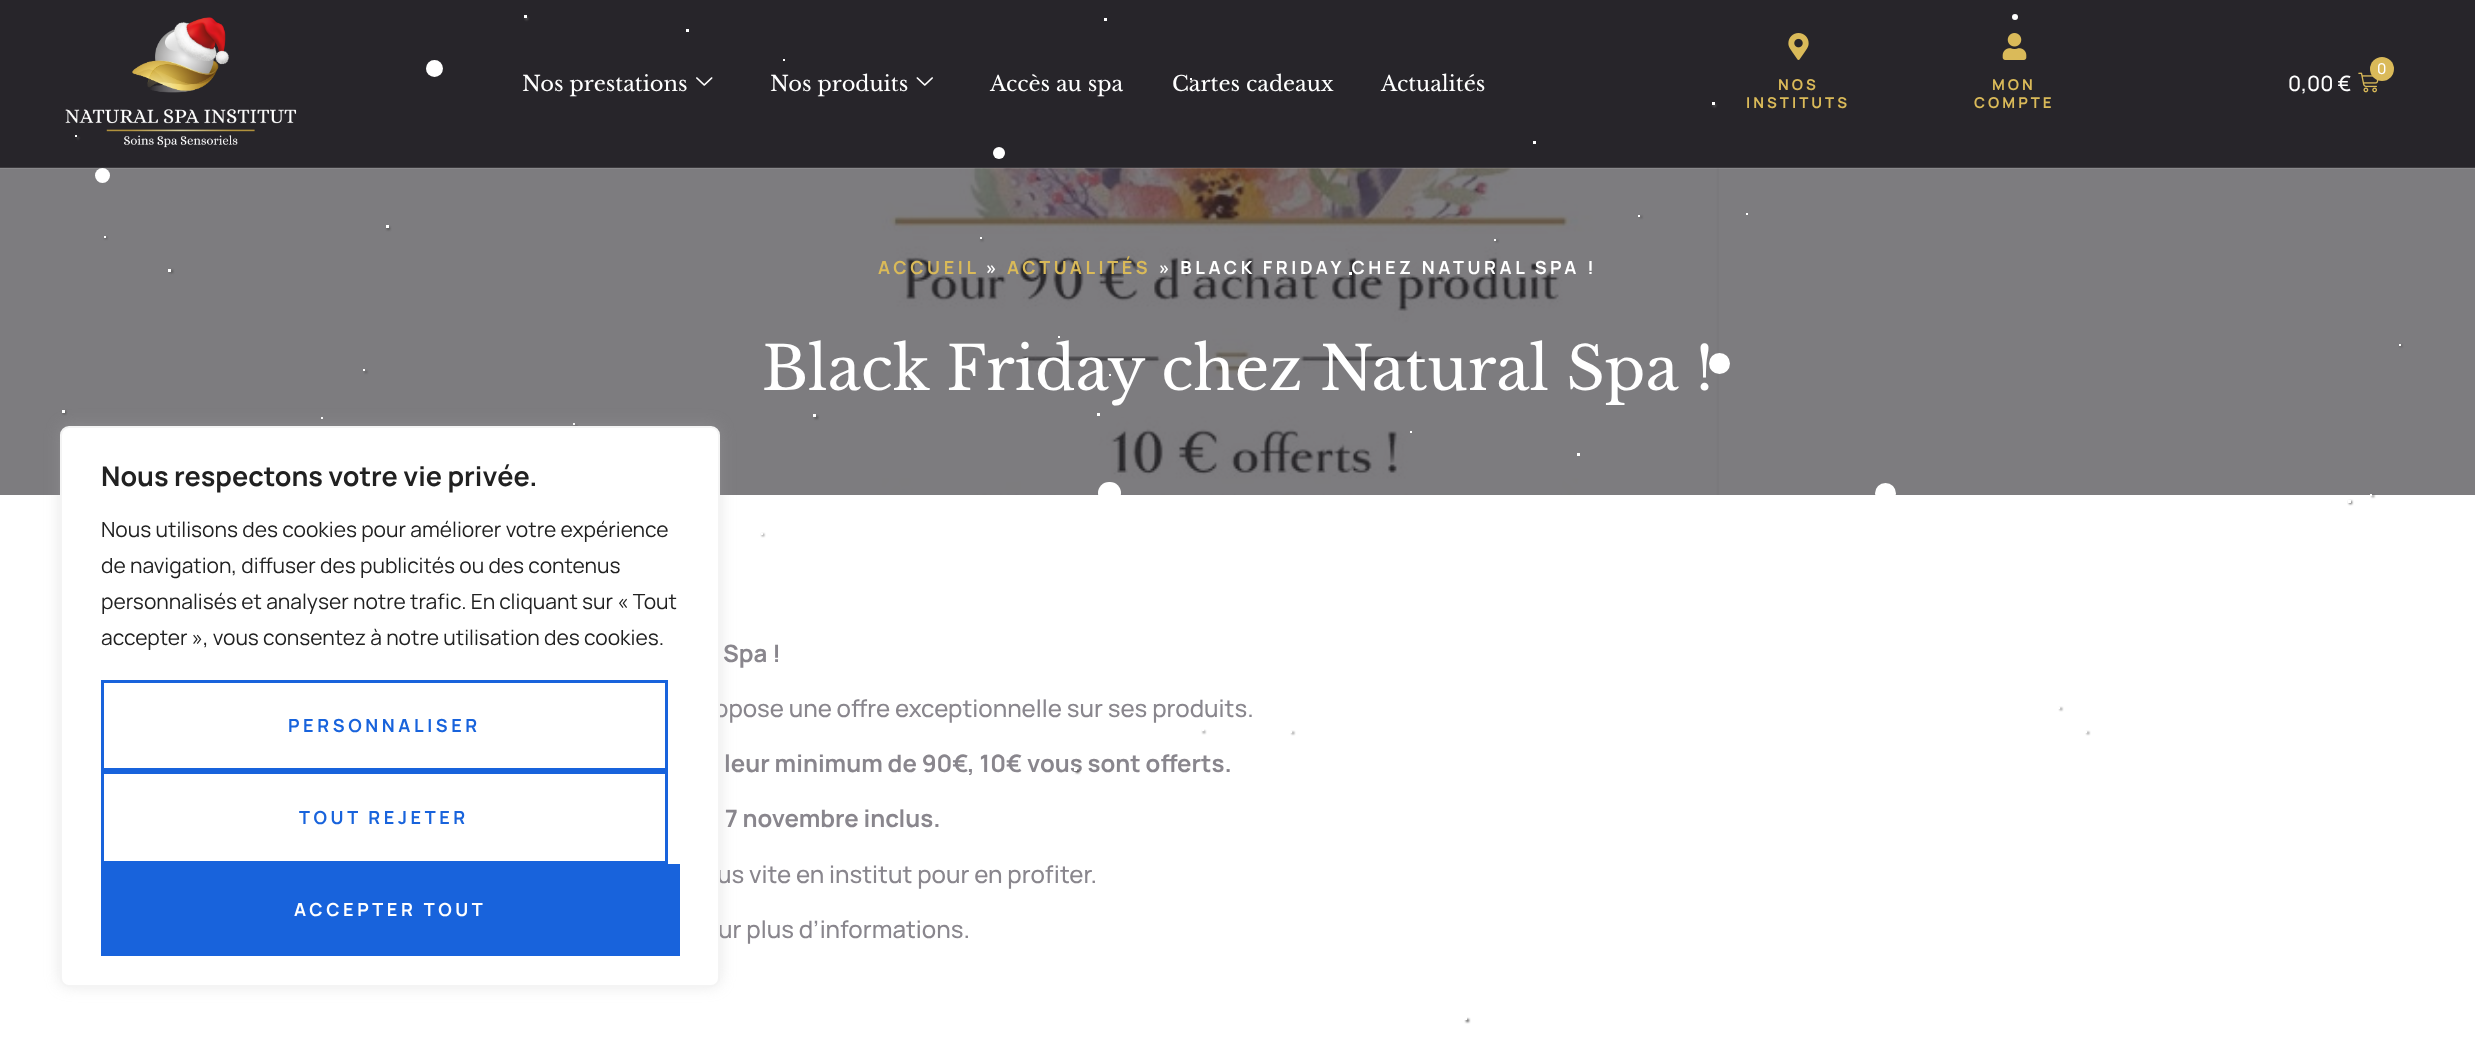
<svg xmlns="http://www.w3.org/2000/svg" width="2475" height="1046">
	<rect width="100%" height="100%" fill="#FFFFFF" />
	<rect x="0" y="168" width="2475" height="327" fill="#7D7C7F" />
	<rect x="0" y="0" width="2475" height="168" fill="#27252A" />
	<rect x="525" y="17" width="3" height="3" fill="#555555" filter="blur(1px)" />
	<rect x="524" y="15" width="3" height="3" fill="#FFFFFF" />
	<rect x="1104" y="18" width="3" height="3" fill="#FFFFFF" />
	<circle cx="2015" cy="17" r="3" fill="#FFFFFF" />
	<rect x="686" y="29" width="3" height="3" fill="#FFFFFF" />
	<circle cx="434.5" cy="68.5" r="8.5" fill="#FFFFFF" />
	<rect x="783" y="59" width="2" height="2" fill="#FFFFFF" />
	<image x="877" y="168" width="842" height="327" href="assets/img7.png" />
	<rect x="0" y="167" width="2475" height="2" fill="#FFFFFF" fill-opacity="0.1" />
	<image x="65" y="17" width="232" height="131" href="assets/img1.png" />
	<text x="522" y="91" font-family="Libre Baskerville" font-size="21" fill="#FFFFFF">Nos prestations</text>
	<image x="696" y="77" width="17" height="9" href="assets/img2.png" />
	<text x="770" y="91" font-family="Libre Baskerville" font-size="21" fill="#FFFFFF">Nos produits</text>
	<image x="916" y="77" width="17" height="9" href="assets/img3.png" />
	<g font-family="Libre Baskerville" font-size="21" fill="#FFFFFF">
		<text x="990" y="91">Accès au spa</text>
		<text x="1172" y="91">Cartes cadeaux</text>
		<text x="1381" y="91">Actualités</text>
	</g>
	<image x="1788" y="33" width="21" height="27" href="assets/img4.png" />
	<g font-family="Manrope" font-size="15" font-weight="700" letter-spacing="3" fill="#DABA59">
		<text x="1778" y="90">NOS</text>
		<text x="1746" y="108">INSTITUTS</text>
	</g>
	<image x="2002" y="33" width="25" height="27" href="assets/img5.png" />
	<g font-family="Manrope" font-size="15" font-weight="700" letter-spacing="3" fill="#DABA59">
		<text x="1992" y="90">MON</text>
		<text x="1974" y="108">COMPTE</text>
	</g>
	<image x="2358" y="72" width="21" height="21" href="assets/img6.png" />
	<circle cx="2382" cy="69" r="12" fill="#DABA59" />
	<text x="2377" y="74" font-family="Manrope" font-size="15" font-weight="500" fill="#FFFFFF">0</text>
	<text x="2288" y="91" font-family="Manrope" font-size="21" font-weight="500" fill="#FFFFFF">0,00 €</text>
	<rect x="1191" y="80" width="2" height="2" fill="#555555" filter="blur(1px)" />
	<rect x="1190" y="78" width="2" height="2" fill="#FFFFFF" />
	<rect x="1713" y="104" width="3" height="3" fill="#555555" filter="blur(1px)" />
	<rect x="1712" y="102" width="3" height="3" fill="#FFFFFF" />
	<rect x="77" y="137" width="2" height="2" fill="#555555" filter="blur(1px)" />
	<rect x="75" y="135" width="2" height="2" fill="#FFFFFF" />
	<rect x="1533" y="141" width="3" height="3" fill="#FFFFFF" />
	<circle cx="999" cy="153" r="6" fill="#FFFFFF" />
	<circle cx="102.5" cy="175.5" r="7.5" fill="#FFFFFF" />
	<rect x="1640" y="216" width="2" height="2" fill="#555555" filter="blur(1px)" />
	<rect x="1638" y="215" width="2" height="2" fill="#FFFFFF" />
	<rect x="1746" y="213" width="2" height="2" fill="#FFFFFF" />
	<rect x="387" y="227" width="3" height="3" fill="#555555" filter="blur(1px)" />
	<rect x="386" y="225" width="3" height="3" fill="#FFFFFF" />
	<rect x="105" y="237" width="2" height="2" fill="#555555" filter="blur(1px)" />
	<rect x="104" y="236" width="2" height="2" fill="#FFFFFF" />
	<rect x="981" y="239" width="2" height="2" fill="#555555" filter="blur(1px)" />
	<rect x="980" y="237" width="2" height="2" fill="#FFFFFF" />
	<rect x="1496" y="240" width="2" height="2" fill="#555555" filter="blur(1px)" />
	<rect x="1494" y="239" width="2" height="2" fill="#FFFFFF" />
	<rect x="170" y="270" width="3" height="3" fill="#555555" filter="blur(1px)" />
	<rect x="168" y="269" width="3" height="3" fill="#FFFFFF" />
	<text x="878" y="274" font-family="Manrope" font-size="18" font-weight="700" letter-spacing="3.6" fill="#DABA59">ACCUEIL</text>
	<text x="986" y="274" font-family="Manrope" font-size="18" font-weight="700" letter-spacing="3.6" fill="#FFFFFF">»</text>
	<text x="1007" y="274" font-family="Manrope" font-size="18" font-weight="700" letter-spacing="3.6" fill="#DABA59">ACTUALITÉS</text>
	<text x="1159" y="274" font-family="Manrope" font-size="18" font-weight="700" letter-spacing="3.6" fill="#FFFFFF">» BLACK FRIDAY CHEZ NATURAL SPA !</text>
	<text x="762" y="390" font-family="Libre Baskerville" font-size="60" fill="#FFFFFF">Black Friday chez Natural Spa !</text>
	<text x="723" y="662" font-family="Manrope" font-size="24" font-weight="700" fill="#89868D">Spa !</text>
	<text x="714" y="717" font-family="Manrope" font-size="24" font-weight="500" fill="#89868D">opose une offre exceptionnelle sur ses produits.</text>
	<g font-family="Manrope" font-size="24" font-weight="700" fill="#89868D">
		<text x="724" y="772">leur minimum de 90€, 10€ vous sont offerts.</text>
		<text x="725" y="827">7 novembre inclus.</text>
	</g>
	<g font-family="Manrope" font-size="24" font-weight="500" fill="#89868D">
		<text x="717" y="883">us vite en institut pour en profiter.</text>
		<text x="718" y="938">ur plus d’informations.</text>
	</g>
	<rect x="1349" y="272" width="3" height="3" fill="#FFFFFF" />
	<rect x="1058" y="336" width="2" height="2" fill="#FFFFFF" />
	<rect x="2400" y="345" width="2" height="2" fill="#555555" filter="blur(1px)" />
	<rect x="2399" y="344" width="2" height="2" fill="#FFFFFF" />
	<rect x="365" y="371" width="2" height="2" fill="#555555" filter="blur(1px)" />
	<rect x="363" y="369" width="2" height="2" fill="#FFFFFF" />
	<rect x="1109" y="374" width="2" height="2" fill="#FFFFFF" />
	<circle cx="1719.5" cy="363.5" r="10.5" fill="#FFFFFF" />
	<rect x="63" y="411" width="3" height="3" fill="#555555" filter="blur(1px)" />
	<rect x="62" y="410" width="3" height="3" fill="#FFFFFF" />
	<rect x="815" y="416" width="3" height="3" fill="#555555" filter="blur(1px)" />
	<rect x="813" y="414" width="3" height="3" fill="#FFFFFF" />
	<rect x="1097" y="413" width="3" height="3" fill="#FFFFFF" />
	<rect x="321" y="417" width="2" height="2" fill="#FFFFFF" />
	<rect x="575" y="425" width="2" height="2" fill="#555555" filter="blur(1px)" />
	<rect x="573" y="423" width="2" height="2" fill="#FFFFFF" />
	<rect x="1410" y="431" width="2" height="2" fill="#FFFFFF" />
	<rect x="1577" y="453" width="3" height="3" fill="#FFFFFF" />
	<rect x="60" y="425" width="660" height="561" rx="9" fill="#ACABAB" fill-opacity="0.3" filter="blur(7.5px)" />
	<rect x="61" y="427" width="658" height="559" rx="8" fill="#FFFFFF" stroke="#F4F4F4" stroke-width="2" />
	<text x="101" y="486" font-family="Manrope" font-size="27" font-weight="700" fill="#212121">Nous respectons votre vie privée.</text>
	<g font-family="Manrope" font-size="21" fill="#212121">
		<text x="101" y="537">Nous utilisons des cookies pour améliorer votre expérience</text>
		<text x="101" y="573">de navigation, diffuser des publicités ou des contenus</text>
		<text x="101" y="609">personnalisés et analyser notre trafic. En cliquant sur « Tout</text>
		<text x="101" y="645">accepter », vous consentez à notre utilisation des cookies.</text>
	</g>
	<rect x="102.5" y="681.5" width="564" height="88" fill="none" stroke="#1863DC" stroke-width="3" />
	<text x="288" y="732" font-family="Manrope" font-size="18" font-weight="700" letter-spacing="3.6" fill="#1863DC">PERSONNALISER</text>
	<rect x="102.5" y="772.5" width="564" height="90" fill="none" stroke="#1863DC" stroke-width="3" />
	<text x="299" y="824" font-family="Manrope" font-size="18" font-weight="700" letter-spacing="3.6" fill="#1863DC">TOUT REJETER</text>
	<rect x="101" y="864" width="579" height="92" fill="#1863DC" />
	<text x="294" y="916" font-family="Manrope" font-size="18" font-weight="700" letter-spacing="3.6" fill="#FFFFFF">ACCEPTER TOUT</text>
	<rect x="1098" y="482" width="23" height="22" rx="11" fill="#FFFFFF" />
	<circle cx="1885.5" cy="493.5" r="10.5" fill="#FFFFFF" />
	<rect x="2372" y="495" width="2" height="2" fill="#555555" filter="blur(1px)" />
	<rect x="2370" y="494" width="2" height="2" fill="#FFFFFF" />
	<rect x="2349" y="501" width="3" height="3" fill="#555555" filter="blur(1px)" />
	<rect x="2348" y="500" width="3" height="3" fill="#FFFFFF" />
	<rect x="762" y="534" width="2" height="2" fill="#555555" filter="blur(1px)" />
	<rect x="761" y="533" width="2" height="2" fill="#FFFFFF" />
	<rect x="2060" y="708" width="2" height="2" fill="#555555" filter="blur(1px)" />
	<rect x="2058" y="707" width="2" height="2" fill="#FFFFFF" />
	<rect x="1203" y="731" width="2" height="2" fill="#555555" filter="blur(1px)" />
	<rect x="1202" y="729" width="2" height="2" fill="#FFFFFF" />
	<rect x="1292" y="732" width="2" height="2" fill="#555555" filter="blur(1px)" />
	<rect x="1290" y="731" width="2" height="2" fill="#FFFFFF" />
	<rect x="2087" y="732" width="2" height="2" fill="#555555" filter="blur(1px)" />
	<rect x="2085" y="731" width="2" height="2" fill="#FFFFFF" />
	<rect x="1076" y="770" width="3" height="3" fill="#555555" filter="blur(1px)" />
	<rect x="1074" y="768" width="3" height="3" fill="#FFFFFF" />
	<rect x="1466" y="1019" width="3" height="3" fill="#555555" filter="blur(1px)" />
	<rect x="1464" y="1017" width="3" height="3" fill="#FFFFFF" />
</svg>
